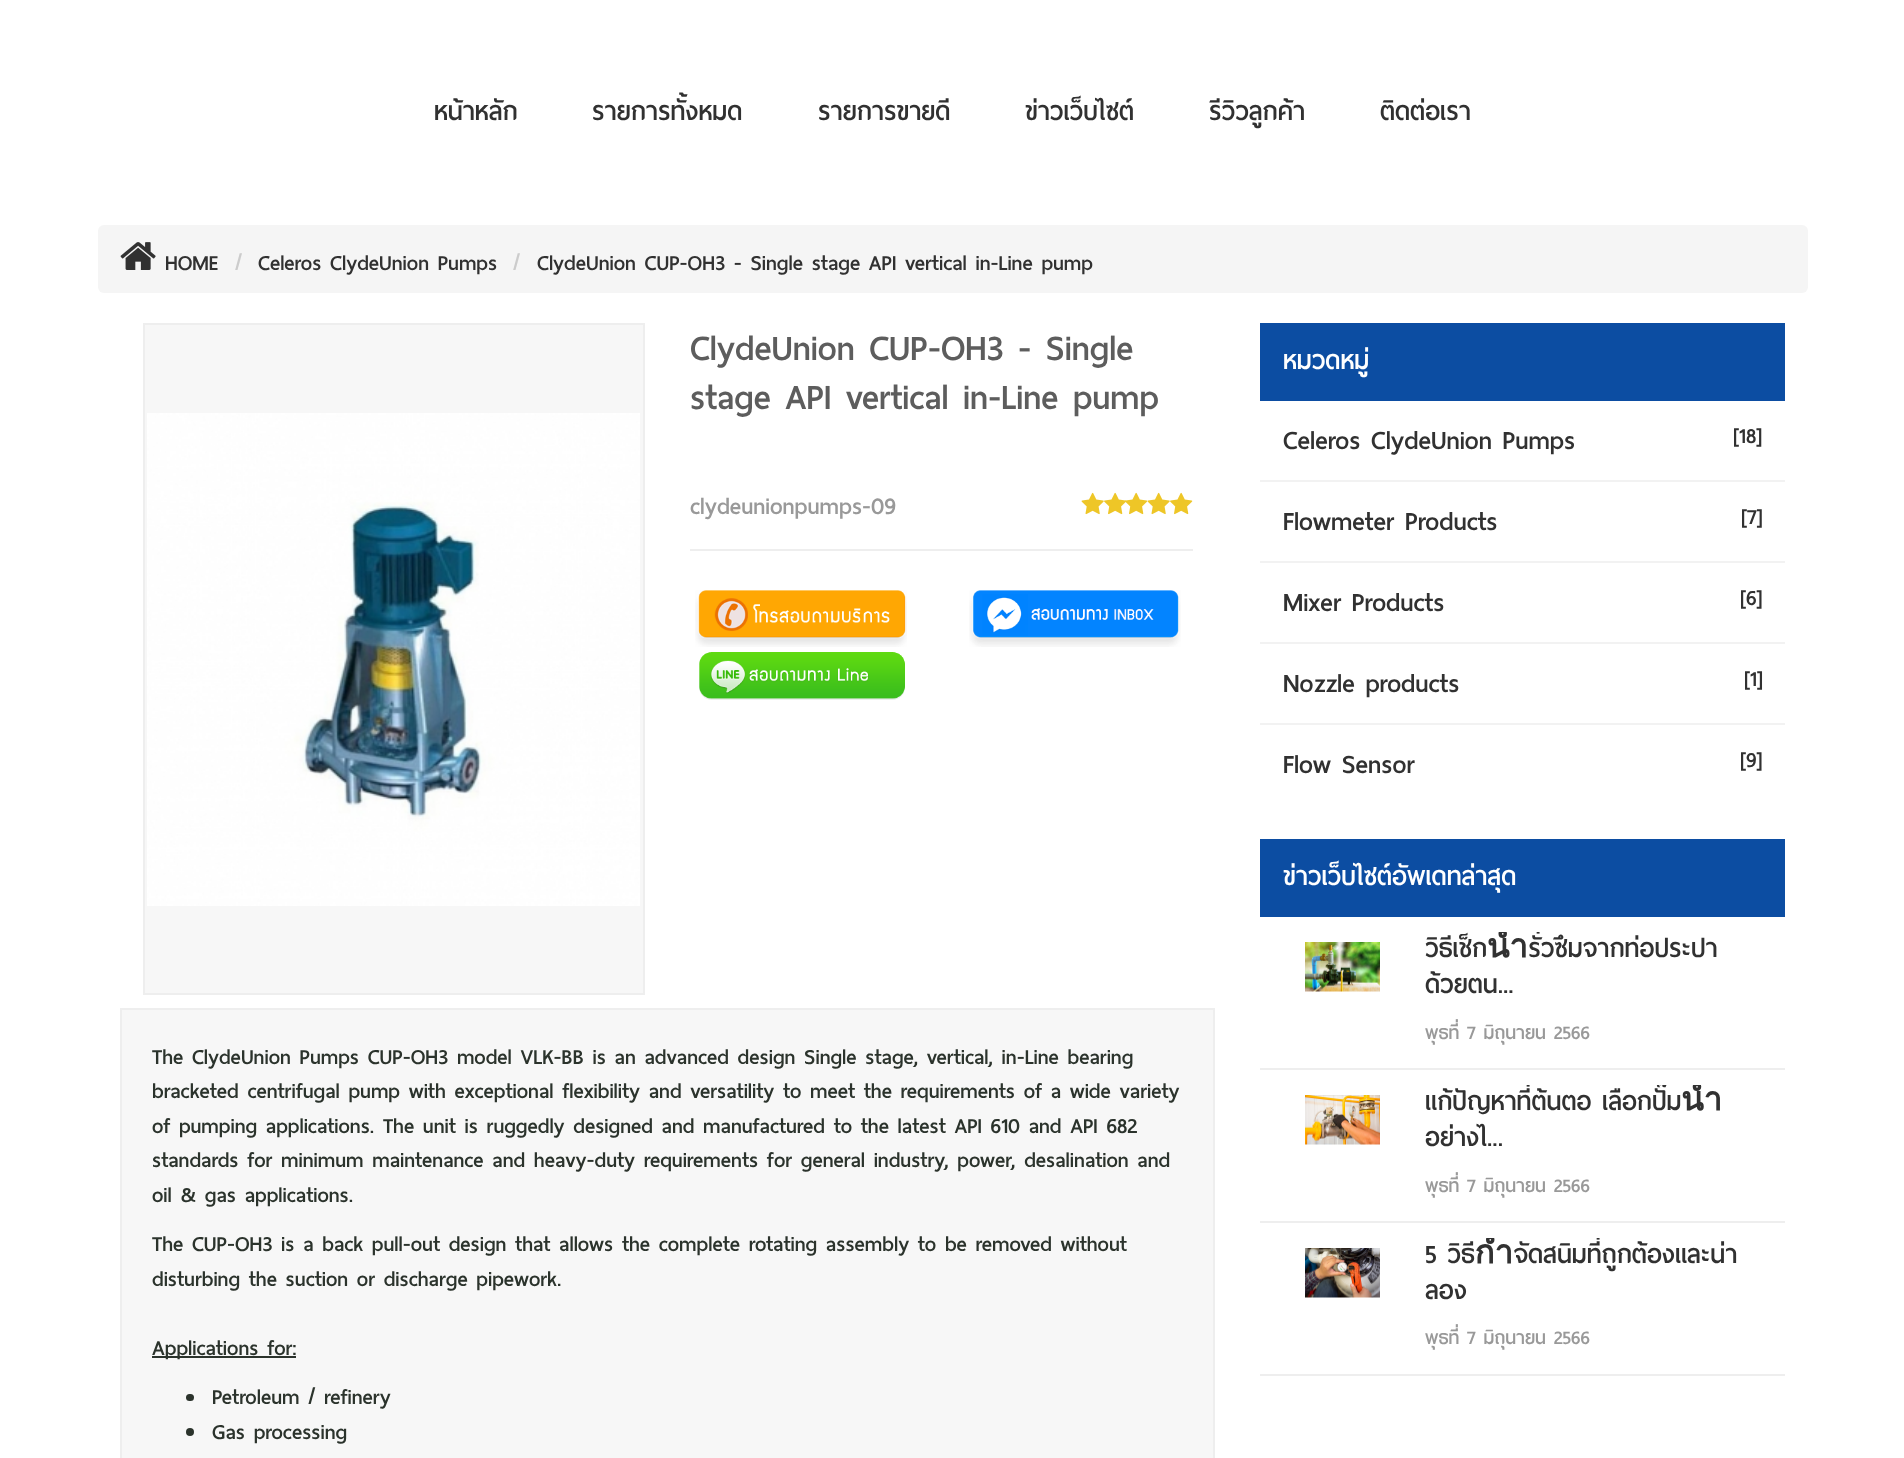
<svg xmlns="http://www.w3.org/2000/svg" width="1904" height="1458">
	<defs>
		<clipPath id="clip1"><rect x="1260" y="932" width="525" height="136" /></clipPath>
		<clipPath id="clip2"><rect x="1260" y="1085" width="525" height="136" /></clipPath>
		<clipPath id="clip3"><rect x="1260" y="1238" width="525" height="136" /></clipPath>
	</defs>
	<rect width="100%" height="100%" fill="#FFFFFF" />
	<g font-family="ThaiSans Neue" font-size="33" font-weight="700" fill="#313131">
		<text x="434" y="120">หน้าหลัก</text>
		<text x="592" y="120">รายการทั้งหมด</text>
		<text x="818" y="120">รายการขายดี</text>
		<text x="1025" y="120">ข่าวเว็บไซต์</text>
		<text x="1209" y="120">รีวิวลูกค้า</text>
		<text x="1380" y="120">ติดต่อเรา</text>
	</g>
	<rect x="98" y="225" width="1710" height="68" rx="6" fill="#F5F5F5" />
	<image x="120" y="242" width="36" height="28" href="assets/img1.png" />
	<text x="165" y="270" font-family="ThaiSans Neue" font-size="27" font-weight="700" fill="#313131">HOME</text>
	<text x="235" y="270" font-family="ThaiSans Neue" font-size="27" font-weight="700" fill="#CCCCCC">/</text>
	<text x="258" y="270" font-family="ThaiSans Neue" font-size="27" font-weight="700" fill="#313131">Celeros ClydeUnion Pumps</text>
	<text x="513" y="270" font-family="ThaiSans Neue" font-size="27" font-weight="700" fill="#CCCCCC">/</text>
	<text x="537" y="270" font-family="ThaiSans Neue" font-size="27" font-weight="700" fill="#313131">ClydeUnion CUP-OH3 - Single stage API vertical in-Line pump</text>
	<rect x="144" y="324" width="500" height="670" fill="#F7F7F7" stroke="#EEEEEE" stroke-width="2" />
	<image x="147" y="413" width="493" height="493" href="assets/img2.png" />
	<g font-family="ThaiSans Neue" font-size="45" font-weight="700" fill="#5D5D5D">
		<text x="690" y="360">ClydeUnion CUP-OH3 - Single</text>
		<text x="690" y="409">stage API vertical in-Line pump</text>
	</g>
	<rect x="690" y="549" width="503" height="2" fill="#EEEEEE" />
	<text x="690" y="514" font-family="ThaiSans Neue" font-size="30" font-weight="700" fill="#999999">clydeunionpumps-09</text>
	<image x="1081" y="492" width="23" height="23" href="assets/img3.png" />
	<image x="1104" y="492" width="23" height="23" href="assets/img4.png" />
	<image x="1125" y="492" width="23" height="23" href="assets/img5.png" />
	<image x="1147" y="492" width="23" height="23" href="assets/img6.png" />
	<image x="1170" y="492" width="23" height="23" href="assets/img4.png" />
	<image x="695" y="590" width="212" height="57" href="assets/img7.png" />
	<image x="969" y="590" width="212" height="57" href="assets/img8.png" />
	<image x="699" y="652" width="206" height="48" href="assets/img9.png" />
	<rect x="121" y="1009" width="1093" height="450" fill="#F7F7F7" stroke="#EEEEEE" stroke-width="2" />
	<g font-family="ThaiSans Neue" font-size="27" font-weight="700" fill="#2B332C">
		<text x="152" y="1064">The ClydeUnion Pumps CUP-OH3 model VLK-BB is an advanced design Single stage, vertical, in-Line bearing</text>
		<text x="152" y="1098">bracketed centrifugal pump with exceptional flexibility and versatility to meet the requirements of a wide variety</text>
		<text x="152" y="1133">of pumping applications. The unit is ruggedly designed and manufactured to the latest API 610 and API 682</text>
		<text x="152" y="1167">standards for minimum maintenance and heavy-duty requirements for general industry, power, desalination and</text>
		<text x="152" y="1202">oil &amp; gas applications.</text>
		<text x="152" y="1251">The CUP-OH3 is a back pull-out design that allows the complete rotating assembly to be removed without</text>
		<text x="152" y="1286">disturbing the suction or discharge pipework.</text>
	</g>
	<rect x="152" y="1356" width="144" height="2" fill="#2B332C" />
	<text x="152" y="1355" font-family="ThaiSans Neue" font-size="27" font-weight="700" fill="#2B332C">Applications for:</text>
	<rect x="186" y="1394" width="8" height="7" rx="3.5" fill="#2B332C" />
	<text x="212" y="1404" font-family="ThaiSans Neue" font-size="27" font-weight="700" fill="#2B332C">Petroleum / refinery</text>
	<circle cx="190" cy="1432" r="4" fill="#2B332C" />
	<text x="212" y="1439" font-family="ThaiSans Neue" font-size="27" font-weight="700" fill="#2B332C">Gas processing</text>
	<rect x="1260" y="323" width="525" height="78" fill="#0C4DA2" />
	<text x="1283" y="369" font-family="ThaiSans Neue" font-size="33" font-weight="700" fill="#FFFFFF">หมวดหมู่</text>
	<rect x="1260" y="480" width="525" height="2" fill="#F2F2F2" />
	<text x="1283" y="449" font-family="ThaiSans Neue" font-size="33" font-weight="700" fill="#313131">Celeros ClydeUnion Pumps</text>
	<text x="1733" y="443" font-family="ThaiSans Neue" font-size="27" font-weight="700" fill="#313131">[18]</text>
	<rect x="1260" y="561" width="525" height="2" fill="#F2F2F2" />
	<text x="1283" y="530" font-family="ThaiSans Neue" font-size="33" font-weight="700" fill="#313131">Flowmeter Products</text>
	<text x="1741" y="524" font-family="ThaiSans Neue" font-size="27" font-weight="700" fill="#313131">[7]</text>
	<rect x="1260" y="642" width="525" height="2" fill="#F2F2F2" />
	<text x="1283" y="611" font-family="ThaiSans Neue" font-size="33" font-weight="700" fill="#313131">Mixer Products</text>
	<text x="1740" y="605" font-family="ThaiSans Neue" font-size="27" font-weight="700" fill="#313131">[6]</text>
	<rect x="1260" y="723" width="525" height="2" fill="#F2F2F2" />
	<text x="1283" y="692" font-family="ThaiSans Neue" font-size="33" font-weight="700" fill="#313131">Nozzle products</text>
	<text x="1744" y="686" font-family="ThaiSans Neue" font-size="27" font-weight="700" fill="#313131">[1]</text>
	<text x="1283" y="773" font-family="ThaiSans Neue" font-size="33" font-weight="700" fill="#313131">Flow Sensor</text>
	<text x="1740" y="767" font-family="ThaiSans Neue" font-size="27" font-weight="700" fill="#313131">[9]</text>
	<rect x="1260" y="839" width="525" height="78" fill="#0C4DA2" />
	<text x="1283" y="885" font-family="ThaiSans Neue" font-size="33" font-weight="700" fill="#FFFFFF">ข่าวเว็บไซต์อัพเดทล่าสุด</text>
	<rect x="1260" y="1068" width="525" height="2" fill="#EEEEEE" />
	<image x="1305" y="942" width="75" height="50" href="assets/img10.png" />
	<g clip-path="url(#clip1)">
		<text x="1425" y="957" font-family="ThaiSans Neue" font-size="33" font-weight="700" fill="#313131">วิธีเช็กน้ำรั่วซึมจากท่อประปา</text>
	</g>
	<text x="1425" y="993" font-family="ThaiSans Neue" font-size="33" font-weight="700" fill="#313131">ด้วยตน...</text>
	<text x="1425" y="1039" font-family="ThaiSans Neue" font-size="24" font-weight="700" fill="#999999">พุธที่ 7 มิถุนายน 2566</text>
	<rect x="1260" y="1221" width="525" height="2" fill="#EEEEEE" />
	<image x="1305" y="1095" width="75" height="50" href="assets/img11.png" />
	<g clip-path="url(#clip2)">
		<text x="1425" y="1110" font-family="ThaiSans Neue" font-size="33" font-weight="700" fill="#313131">แก้ปัญหาที่ต้นตอ เลือกปั๊มน้ำ</text>
	</g>
	<text x="1425" y="1146" font-family="ThaiSans Neue" font-size="33" font-weight="700" fill="#313131">อย่างไ...</text>
	<text x="1425" y="1192" font-family="ThaiSans Neue" font-size="24" font-weight="700" fill="#999999">พุธที่ 7 มิถุนายน 2566</text>
	<rect x="1260" y="1374" width="525" height="2" fill="#EEEEEE" />
	<image x="1305" y="1248" width="75" height="50" href="assets/img12.png" />
	<g clip-path="url(#clip3)">
		<text x="1425" y="1263" font-family="ThaiSans Neue" font-size="33" font-weight="700" fill="#313131">5 วิธีกำจัดสนิมที่ถูกต้องและน่า</text>
	</g>
	<text x="1425" y="1299" font-family="ThaiSans Neue" font-size="33" font-weight="700" fill="#313131">ลอง</text>
	<text x="1425" y="1344" font-family="ThaiSans Neue" font-size="24" font-weight="700" fill="#999999">พุธที่ 7 มิถุนายน 2566</text>
</svg>
